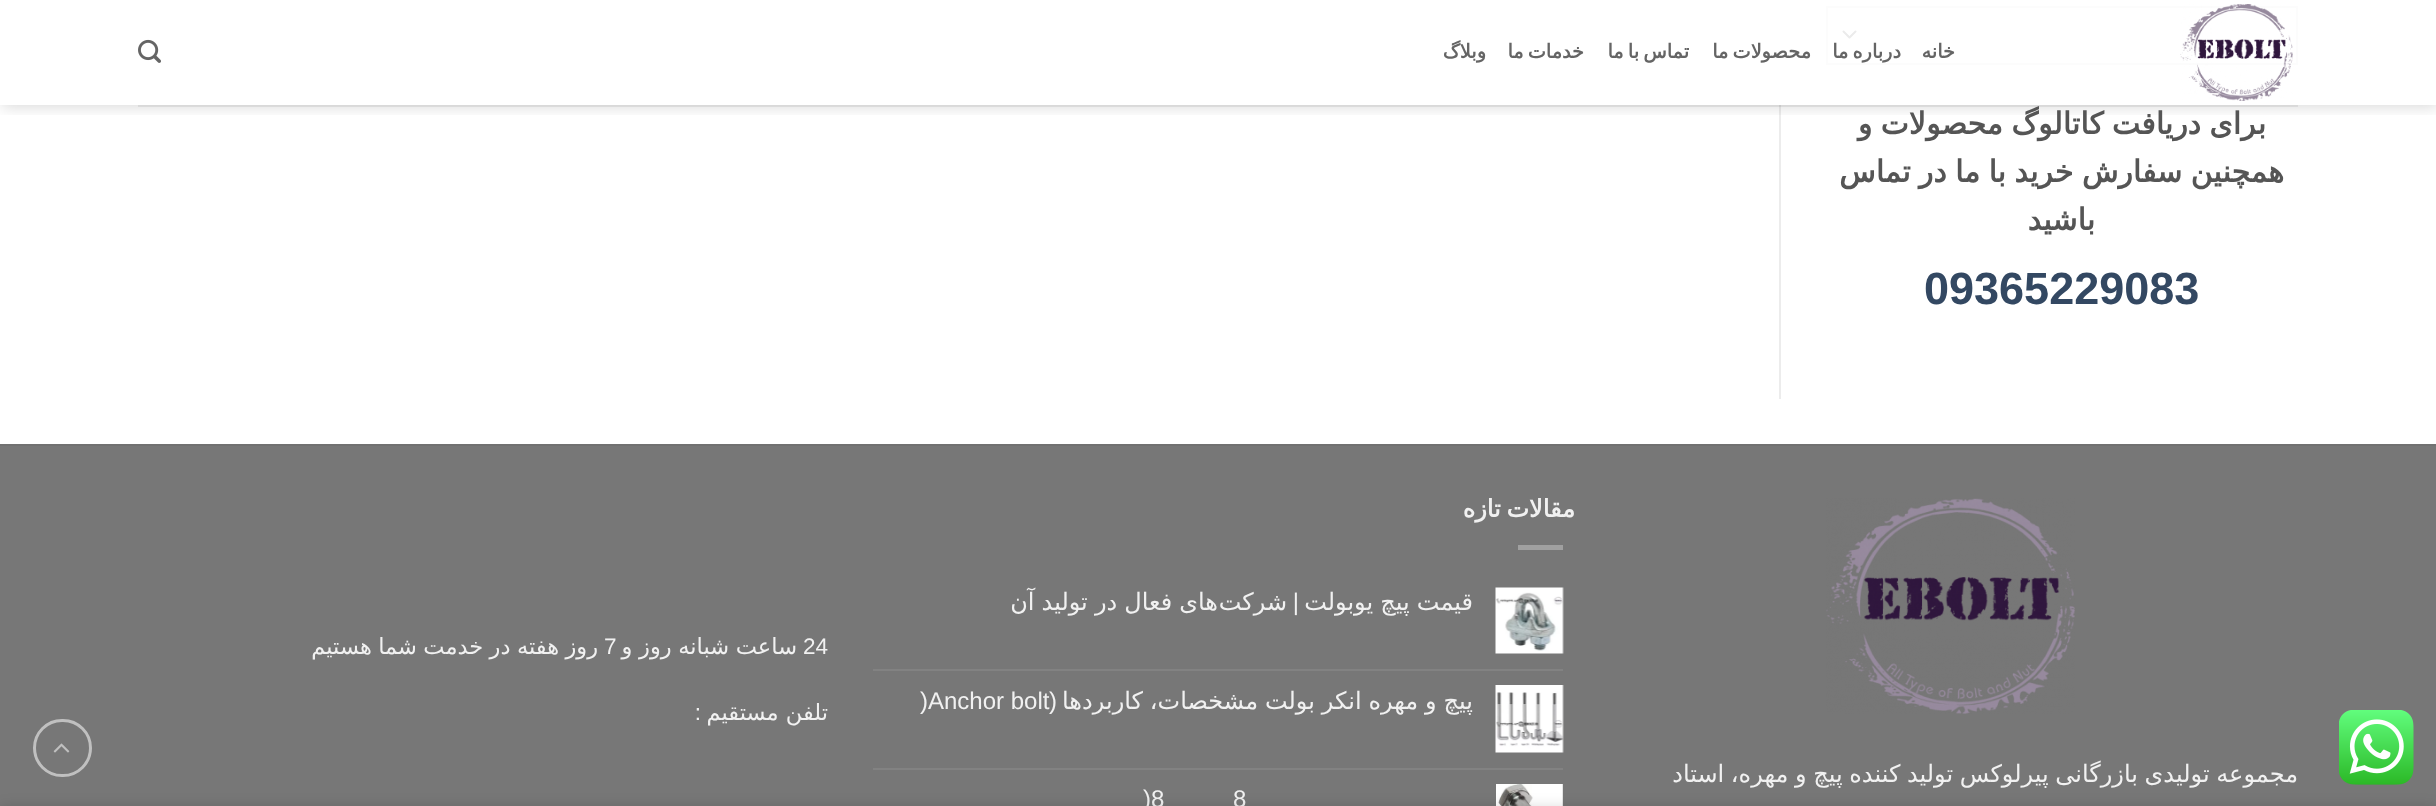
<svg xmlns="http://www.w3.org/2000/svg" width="2436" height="806">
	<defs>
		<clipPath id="clip1"><rect x="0" y="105" width="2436" height="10" /></clipPath>
	</defs>
	<rect width="100%" height="100%" fill="#FFFFFF" />
	<rect x="0" y="446" width="2436" height="360" fill="#777777" />
	<image x="2339" y="710" width="75" height="75" href="assets/img1.png" />
	<path d="M1843.5 31.5L1849.5 37.5L1855.5 31.5" fill="none" stroke="#EBEBEB" stroke-width="2" stroke-linecap="round" stroke-linejoin="round" />
	<rect x="1827" y="7" width="470" height="57" fill="none" stroke="#FCFCFC" stroke-width="2" />
	<rect x="1779" y="105" width="2" height="294" fill="#ECECEC" />
	<g clip-path="url(#clip1)">
		<rect x="2" y="2" width="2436" height="105" fill="#000000" fill-opacity="0.15" filter="blur(7.5px)" />
	</g>
	<image x="2180" y="4" width="113" height="97" href="assets/img2.png" />
	<g font-family="DejaVu Sans" font-size="19.25" font-weight="700" letter-spacing="0.4" direction="rtl" fill="#656565">
		<text x="1955" y="58">خانه</text>
		<text x="1901" y="58" word-spacing="-2">درباره ما</text>
		<text x="1811" y="58" word-spacing="-2">محصولات ما</text>
		<text x="1689" y="58" word-spacing="-2">تماس با ما</text>
		<text x="1584" y="58" word-spacing="-2">خدمات ما</text>
		<text x="1486" y="58">وبلاگ</text>
	</g>
	<image x="138" y="39" width="23" height="24" href="assets/img3.png" />
	<rect x="138" y="105" width="2160" height="2" fill="#4A4A4A" fill-opacity="0.1" />
	<g font-family="DejaVu Sans" font-size="30" font-weight="700" direction="rtl" fill="#555555">
		<text x="2266" y="134" word-spacing="-1.25">برای دریافت کاتالوگ محصولات و</text>
		<text x="2284" y="182" word-spacing="-1.25">همچنین سفارش خرید با ما در تماس</text>
		<text x="2095" y="230">باشید</text>
	</g>
	<text x="1924" y="304" font-family="Liberation Sans" font-size="45" font-weight="700" fill="#334862">09365229083</text>
	<rect x="0" y="444" width="2436" height="2" fill="#717171" />
	<text x="1575" y="517" word-spacing="-2" font-family="DejaVu Sans" font-size="24" font-weight="700" letter-spacing="1.25" direction="rtl" fill="#F1F1F1">مقالات تازه</text>
	<rect x="1518" y="545" width="45" height="5" fill="#A0A0A0" />
	<image x="1495" y="587" width="69" height="67" href="assets/img4.png" />
	<text x="1473" y="610" word-spacing="-0.5" font-family="DejaVu Sans" font-size="24" direction="rtl" fill="#F1F1F1">قیمت پیچ یوبولت</text>
	<text x="1299" y="610" font-family="Liberation Sans" font-size="24" direction="rtl" fill="#F1F1F1">|</text>
	<g font-family="DejaVu Sans" font-size="24" direction="rtl" fill="#F1F1F1">
		<text x="1218" y="610" word-spacing="-0.5">های فعال در تولید آن</text>
		<text x="1287" y="610">شرکت</text>
	</g>
	<rect x="873" y="669" width="690" height="2" fill="#828282" />
	<image x="1495" y="685" width="69" height="68" href="assets/img5.png" />
	<text x="1473" y="709" word-spacing="-0.75" font-family="DejaVu Sans" font-size="24" direction="rtl" fill="#F1F1F1">پیچ و مهره انکر بولت مشخصات، کاربردها</text>
	<text x="1057" y="709" font-family="Liberation Sans" font-size="24" direction="rtl" fill="#F1F1F1">(</text>
	<text x="920" y="709" font-family="Liberation Sans" font-size="24" fill="#F1F1F1">)Anchor bolt</text>
	<rect x="873" y="768" width="690" height="2" fill="#828282" />
	<image x="1496" y="784" width="67" height="22" href="assets/img6.png" />
	<g font-family="Liberation Sans" font-size="24" fill="#F1F1F1">
		<text x="1233" y="807">8</text>
		<text x="1143" y="807">)8</text>
	</g>
	<text x="803" y="654" font-family="Liberation Sans" font-size="22.5" fill="#F1F1F1">24</text>
	<text x="797" y="654" word-spacing="-0.5" font-family="DejaVu Sans" font-size="22.5" direction="rtl" fill="#F1F1F1">ساعت شبانه روز و</text>
	<text x="604" y="654" font-family="Liberation Sans" font-size="22.5" fill="#F1F1F1">7</text>
	<g font-family="DejaVu Sans" font-size="22.5" direction="rtl" fill="#F1F1F1">
		<text x="598" y="654" word-spacing="-0.75">روز هفته در خدمت شما هستیم</text>
		<text x="828" y="720">تلفن مستقیم</text>
	</g>
	<text x="701" y="720" font-family="Liberation Sans" font-size="22.5" direction="rtl" fill="#F1F1F1">:</text>
	<image x="1826" y="498" width="249" height="216" href="assets/img7.png" />
	<text x="2298" y="782" word-spacing="-1" font-family="DejaVu Sans" font-size="24" direction="rtl" fill="#F1F1F1">مجموعه تولیدی بازرگانی پیرلوکس تولید کننده پیچ و مهره، استاد</text>
	<rect x="34.5" y="720.5" width="56" height="55" rx="27.5" fill="none" stroke="#C0C0C0" stroke-width="3" />
	<image x="53" y="743" width="17" height="10" href="assets/img8.png" />
	<rect x="0" y="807" width="2436" height="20" fill="#000000" fill-opacity="0.14" filter="blur(7px)" />
</svg>
